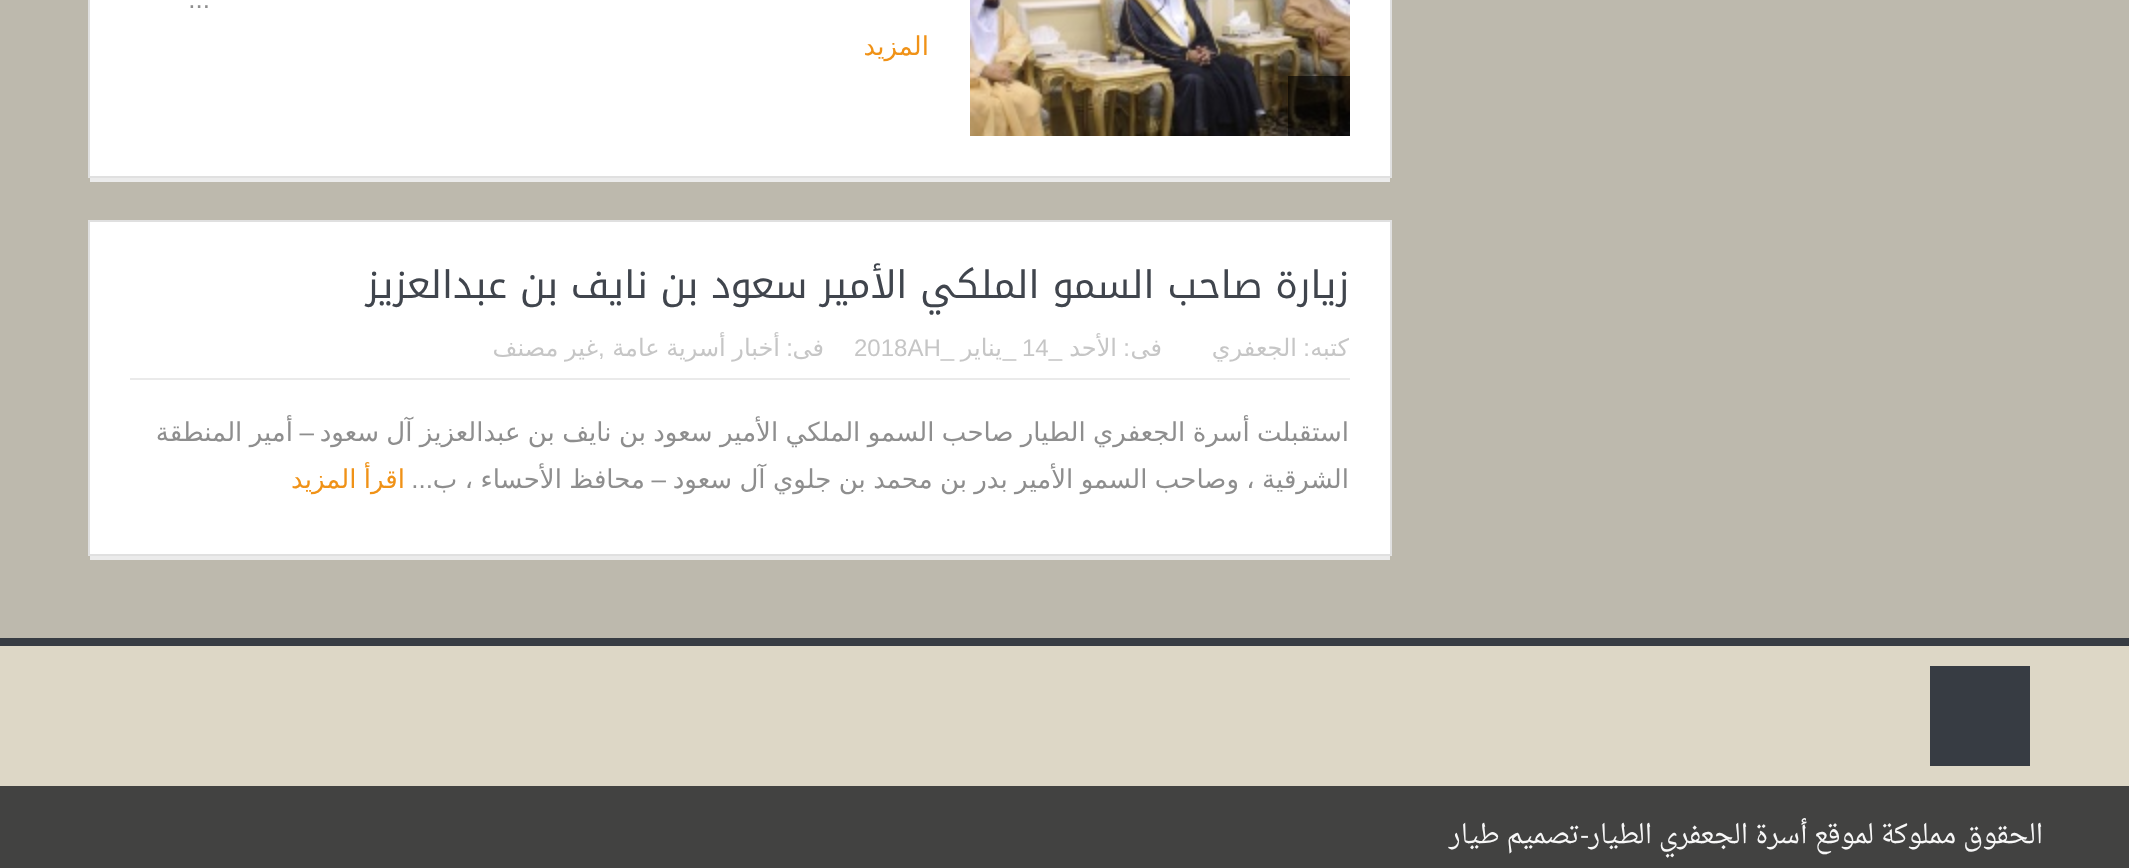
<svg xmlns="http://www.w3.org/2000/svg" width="2129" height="868">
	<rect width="100%" height="100%" fill="#BDB9AD" />
	<rect x="89" y="-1" width="1302" height="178" fill="#FFFFFF" stroke="#E0E0E0" stroke-width="2" />
	<image x="970" y="0" width="380" height="136" href="assets/img1.png" />
	<rect x="1288" y="76" width="62" height="60" fill="#000000" fill-opacity="0.6" />
	<text x="210" y="8" font-family="Liberation Sans" font-size="26" direction="rtl" fill="#8E8E8E">...</text>
	<text x="929" y="55" font-family="DejaVu Sans" font-size="26" direction="rtl" fill="#F09217">المزيد</text>
	<rect x="90" y="178" width="1300" height="4" fill="#EBEBEB" />
	<rect x="89" y="221" width="1302" height="334" fill="#FFFFFF" stroke="#E0E0E0" stroke-width="2" />
	<rect x="130" y="378" width="1220" height="2" fill="#EAEAEA" />
	<text x="1349" y="298" font-family="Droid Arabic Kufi" font-size="38" direction="rtl" fill="#40454D">زيارة صاحب السمو الملكي الأمير سعود بن نايف بن عبدالعزيز</text>
	<text x="1349" y="356" font-family="DejaVu Sans" font-size="24" direction="rtl" fill="#C6C6C6">كتبه</text>
	<text x="1310" y="356" font-family="Liberation Sans" font-size="24" direction="rtl" fill="#C6C6C6">:</text>
	<g font-family="DejaVu Sans" font-size="24" direction="rtl" fill="#C6C6C6">
		<text x="1297" y="356">الجعفري</text>
		<text x="1162" y="356">فى</text>
	</g>
	<text x="1130" y="356" font-family="Liberation Sans" font-size="24" direction="rtl" fill="#C6C6C6">:</text>
	<text x="1117" y="356" font-family="DejaVu Sans" font-size="24" direction="rtl" fill="#C6C6C6">الأحد</text>
	<text x="1022" y="356" font-family="Liberation Sans" font-size="24" fill="#C6C6C6">14</text>
	<text x="1002" y="356" font-family="DejaVu Sans" font-size="24" direction="rtl" fill="#C6C6C6">يناير</text>
	<text x="854" y="356" font-family="Liberation Sans" font-size="24" fill="#C6C6C6">2018AH</text>
	<g font-family="Liberation Sans" font-size="24" direction="rtl" fill="#C6C6C6">
		<text x="1062" y="356">_</text>
		<text x="1016" y="356">_</text>
		<text x="954" y="356">_</text>
	</g>
	<text x="824" y="356" font-family="DejaVu Sans" font-size="24" direction="rtl" fill="#C6C6C6">فى</text>
	<text x="793" y="356" font-family="Liberation Sans" font-size="24" direction="rtl" fill="#C6C6C6">:</text>
	<text x="780" y="356" word-spacing="-1" font-family="DejaVu Sans" font-size="24" direction="rtl" fill="#C6C6C6">أخبار أسرية عامة</text>
	<text x="598" y="356" font-family="Liberation Sans" font-size="24" fill="#C6C6C6">,</text>
	<text x="598" y="356" word-spacing="-1" font-family="DejaVu Sans" font-size="24" direction="rtl" fill="#C6C6C6">غير مصنف</text>
	<text x="1349" y="441" word-spacing="-0.9" font-family="DejaVu Sans" font-size="26" direction="rtl" fill="#8E8E8E">استقبلت أسرة الجعفري الطيار صاحب السمو الملكي الأمير سعود بن نايف بن عبدالعزيز آل سعود</text>
	<text x="314" y="441" font-family="Liberation Sans" font-size="26" direction="rtl" fill="#8E8E8E">–</text>
	<g font-family="DejaVu Sans" font-size="26" direction="rtl" fill="#8E8E8E">
		<text x="293" y="441" word-spacing="-0.9">أمير المنطقة</text>
		<text x="1349" y="488" word-spacing="-0.9">الشرقية ، وصاحب السمو الأمير بدر بن محمد بن جلوي آل سعود</text>
	</g>
	<text x="666" y="488" font-family="Liberation Sans" font-size="26" direction="rtl" fill="#8E8E8E">–</text>
	<text x="645" y="488" word-spacing="-0.9" font-family="DejaVu Sans" font-size="26" direction="rtl" fill="#8E8E8E">محافظ الأحساء ، ب</text>
	<text x="405" y="488" word-spacing="-1" font-family="DejaVu Sans" font-size="26" direction="rtl" fill="#F09217">اقرأ المزيد</text>
	<text x="433" y="488" font-family="Liberation Sans" font-size="26" direction="rtl" fill="#8E8E8E">...</text>
	<rect x="90" y="556" width="1300" height="4" fill="#EBEBEB" />
	<rect x="0" y="646" width="2129" height="140" fill="#DDD7C6" />
	<rect x="0" y="638" width="2129" height="8" fill="#373C43" />
	<rect x="0" y="786" width="2129" height="82" fill="#424241" />
	<text x="1589" y="843" font-family="Liberation Serif" font-size="26" direction="rtl" fill="#F7F7F7">-</text>
	<g font-family="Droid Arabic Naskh" font-size="26" direction="rtl" fill="#F7F7F7">
		<text x="2043" y="843">الحقوق مملوكة لموقع أسرة الجعفري الطيار</text>
		<text x="1580" y="843">تصميم طيار</text>
	</g>
	<rect x="1930" y="666" width="100" height="100" fill="#373C43" />
</svg>
